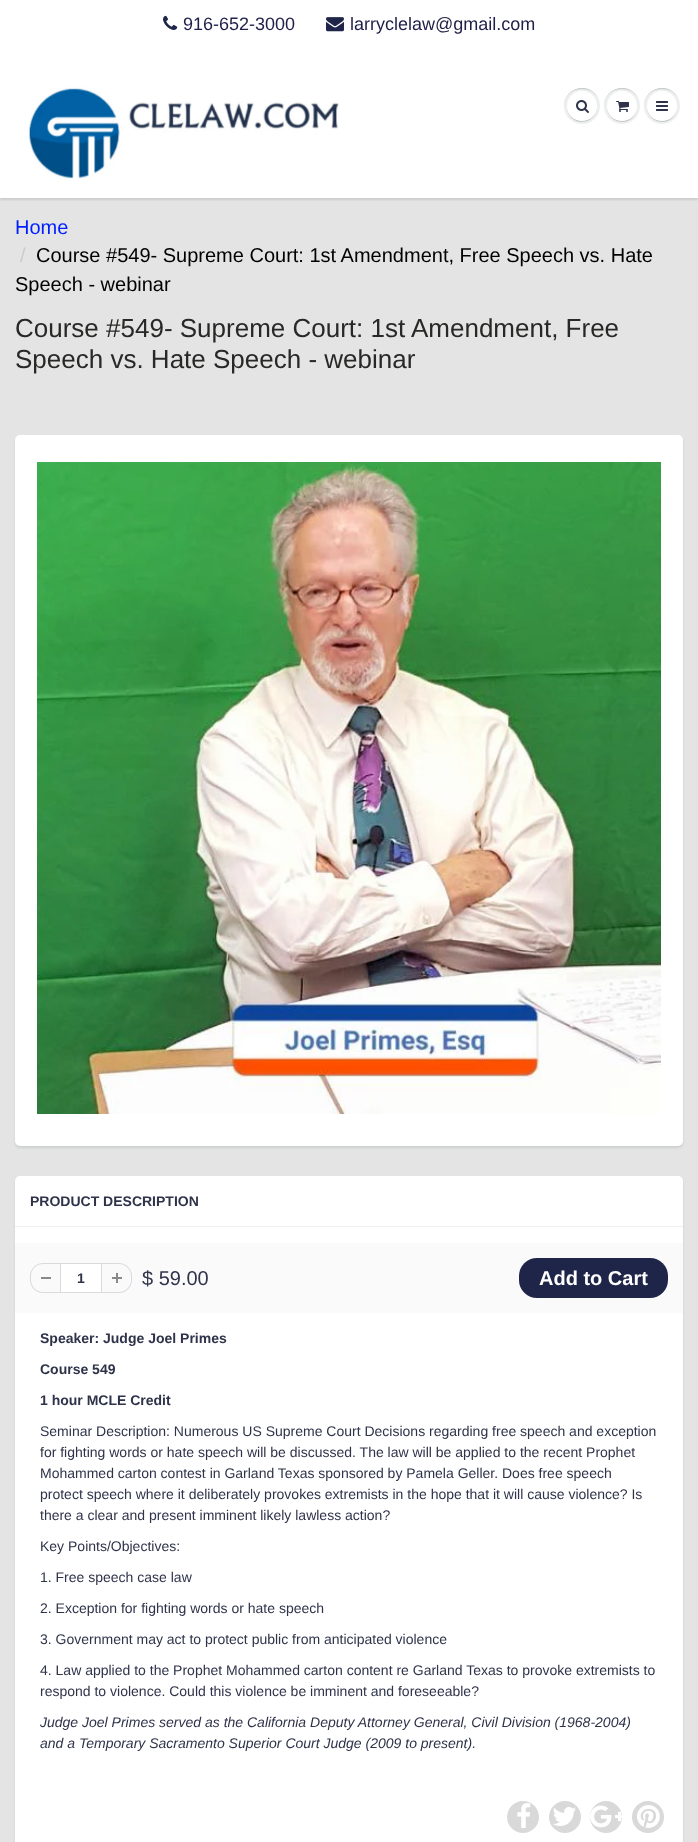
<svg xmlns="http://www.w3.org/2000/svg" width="698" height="1842">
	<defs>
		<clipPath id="clip1"><rect x="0" y="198" width="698" height="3" /></clipPath>
	</defs>
	<rect width="100%" height="100%" fill="#FFFFFF" />
	<image x="163" y="15" width="15" height="15" href="assets/img1.png" />
	<text x="183" y="30" font-family="Liberation Sans" font-size="18" fill="#1F1F49">916-652-3000</text>
	<image x="326" y="17" width="18" height="15" href="assets/img2.png" />
	<text x="350" y="30" font-family="Liberation Sans" font-size="18" fill="#1F1F49">larryclelaw@gmail.com</text>
	<rect x="0" y="198" width="698" height="1644" fill="#E4E4E4" />
	<g clip-path="url(#clip1)">
		<rect x="0" y="57" width="698" height="143" fill="#0B191C" fill-opacity="0.12" filter="blur(1px)" />
	</g>
	<image x="28" y="87" width="311" height="92" href="assets/img3.png" />
	<circle cx="582" cy="106" r="18" fill="#EDEFEF" />
	<path d="M582 89C594 89 600 97.5 600 106.5C600 103 599 99 597 96C587 81 563.5 88.5 564 106.5C564 97.5 570 89 582 89Z" fill="#C9CBCB" />
	<path d="M597 106.5C596.5 125.5 567.5 125.5 567 106.5C567 109.5 568 113 569.5 115.5C578 128 597.5 121.5 597 106.5Z" fill="#C9CBCB" />
	<circle cx="582" cy="106" r="15" fill="#FFFFFF" />
	<path d="M582 92C592 92 597 99 597 106.5C597 103.5 596 100 594.5 97.5C586 85 566.5 91.5 567 106.5C567 99 572 92 582 92Z" fill="#FFFFFF" />
	<image x="576" y="100" width="13" height="13" href="assets/img4.png" />
	<circle cx="622" cy="106" r="18" fill="#EDEFEF" />
	<path d="M622 89C634 89 640 97.5 640 106.5C640 103 639 99 637 96C627 81 603.5 88.5 604 106.5C604 97.5 610 89 622 89Z" fill="#C9CBCB" />
	<path d="M637 106.5C636.5 125.5 607.5 125.5 607 106.5C606.5 121.5 626 128 634.5 115.5C636 113 637 109.5 637 106.5Z" fill="#C9CBCB" />
	<circle cx="622" cy="106" r="15" fill="#FFFFFF" />
	<path d="M622 92C632 92 637 99 637 106.5C637 103.5 636 100 634.5 97.5C626 85 606.5 91.5 607 106.5C607 99 612 92 622 92Z" fill="#FFFFFF" />
	<image x="616" y="101" width="13" height="11" href="assets/img5.png" />
	<circle cx="662" cy="106" r="18" fill="#EDEFEF" />
	<path d="M662 89C674 89 680 97.5 680 106.5C680 103 679 99 677 96C667 81 643.5 88.5 644 106.5C644 97.5 650 89 662 89Z" fill="#C9CBCB" />
	<path d="M677 106.5C676.5 125.5 647.5 125.5 647 106.5C646.5 121.5 666 128 674.5 115.5C676 113 677 109.5 677 106.5Z" fill="#C9CBCB" />
	<circle cx="662" cy="106" r="15" fill="#FFFFFF" />
	<path d="M662 92C672 92 677 99 677 106.5C677 103.5 676 100 674.5 97.5C666 85 646.5 91.5 647 106.5C647 99 652 92 662 92Z" fill="#FFFFFF" />
	<image x="656" y="101" width="12" height="10" href="assets/img6.png" />
	<text x="15" y="234" font-family="Liberation Sans" font-size="20" fill="#001EFF">Home</text>
	<text x="20" y="262" font-family="Liberation Sans" font-size="20" fill="#CCCCCC">/</text>
	<g font-family="Liberation Sans" font-size="20" fill="#000000">
		<text x="36" y="262">Course #549- Supreme Court: 1st Amendment, Free Speech vs. Hate</text>
		<text x="15" y="291">Speech - webinar</text>
	</g>
	<g font-family="Liberation Sans" font-size="26" fill="#282827">
		<text x="15" y="337">Course #549- Supreme Court: 1st Amendment, Free</text>
		<text x="15" y="368">Speech vs. Hate Speech - webinar</text>
	</g>
	<rect x="15" y="437" width="668" height="711" rx="5" fill="#0B191C" fill-opacity="0.1" filter="blur(1px)" />
	<rect x="15" y="435" width="668" height="711" rx="5" fill="#FFFFFF" />
	<image x="37" y="462" width="624" height="652" href="assets/img7.png" />
	<rect x="15" y="1178" width="668" height="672" rx="5" fill="#0B191C" fill-opacity="0.1" filter="blur(1px)" />
	<rect x="15" y="1176" width="668" height="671" rx="5" fill="#FFFFFF" />
	<rect x="15" y="1226" width="668" height="1" fill="#EFEFEF" />
	<text x="30" y="1206" font-family="Liberation Sans" font-size="14" font-weight="700" fill="#2F334A">PRODUCT DESCRIPTION</text>
	<rect x="15" y="1243" width="668" height="70" fill="#FAFAFA" />
	<rect x="41" y="1277" width="10" height="2" fill="#898989" />
	<path d="M43 1263H60V1293H43C36 1293 30 1287 30 1280V1276C30 1269 36 1263 43 1263ZM43 1264H60V1292H43C36.5 1292 31 1286.5 31 1280V1276C31 1269.5 36.5 1264 43 1264Z" fill="#D7DBDB" fill-rule="evenodd" />
	<rect x="60.5" y="1263.5" width="41" height="29" fill="#FFFFFF" stroke="#D7DBDB" />
	<text x="77" y="1283" font-family="Liberation Sans" font-size="14" font-weight="700" fill="#2F334A">1</text>
	<image x="112" y="1273" width="10" height="10" href="assets/img8.png" />
	<path d="M102 1263H119C126 1263 132 1269 132 1276V1280C132 1287 126 1293 119 1293H102ZM102 1264H119C125.5 1264 131 1269.5 131 1276V1280C131 1286.5 125.5 1292 119 1292H102Z" fill="#D7DBDB" fill-rule="evenodd" />
	<text x="142" y="1285" font-family="Liberation Sans" font-size="20" fill="#2F334A">$ 59.00</text>
	<rect x="519" y="1258" width="149" height="40" rx="18" fill="#1F2548" />
	<text x="539" y="1285" font-family="Liberation Sans" font-size="20" font-weight="700" fill="#FEFEFE">Add to Cart</text>
	<g font-family="Liberation Sans" font-size="14" font-weight="700" fill="#2F334A">
		<text x="40" y="1343">Speaker: Judge Joel Primes</text>
		<text x="40" y="1374">Course 549</text>
		<text x="40" y="1405">1 hour MCLE Credit</text>
	</g>
	<g font-family="Liberation Sans" font-size="14" fill="#2F334A">
		<text x="40" y="1436">Seminar Description: Numerous US Supreme Court Decisions regarding free speech and exception</text>
		<text x="40" y="1457">for fighting words or hate speech will be discussed. The law will be applied to the recent Prophet</text>
		<text x="40" y="1478">Mohammed carton contest in Garland Texas sponsored by Pamela Geller. Does free speech</text>
		<text x="40" y="1499">protect speech where it deliberately provokes extremists in the hope that it will cause violence? Is</text>
		<text x="40" y="1520">there a clear and present imminent likely lawless action?</text>
		<text x="40" y="1551">Key Points/Objectives:</text>
		<text x="40" y="1582">1. Free speech case law</text>
		<text x="40" y="1613">2. Exception for fighting words or hate speech</text>
		<text x="40" y="1644">3. Government may act to protect public from anticipated violence</text>
		<text x="40" y="1675">4. Law applied to the Prophet Mohammed carton content re Garland Texas to provoke extremists to</text>
		<text x="40" y="1696">respond to violence. Could this violence be imminent and foreseeable?</text>
	</g>
	<g font-family="Liberation Sans" font-size="14" font-style="italic" fill="#2F334A">
		<text x="40" y="1727">Judge Joel Primes served as the California Deputy Attorney General, Civil Division (1968-2004)</text>
		<text x="40" y="1748">and a Temporary Sacramento Superior Court Judge (2009 to present).</text>
	</g>
	<circle cx="523" cy="1817" r="16" fill="#D9D9D9" />
	<image x="517" y="1803" width="14" height="25" href="assets/img9.png" />
	<circle cx="565" cy="1817" r="16" fill="#D9D9D9" />
	<image x="553" y="1807" width="23" height="19" href="assets/img10.png" />
	<circle cx="606" cy="1817" r="16" fill="#D9D9D9" />
	<image x="590" y="1805" width="32" height="23" href="assets/img11.png" />
	<circle cx="648" cy="1817" r="16" fill="#D9D9D9" />
	<image x="637" y="1805" width="23" height="23" href="assets/img12.png" />
</svg>
